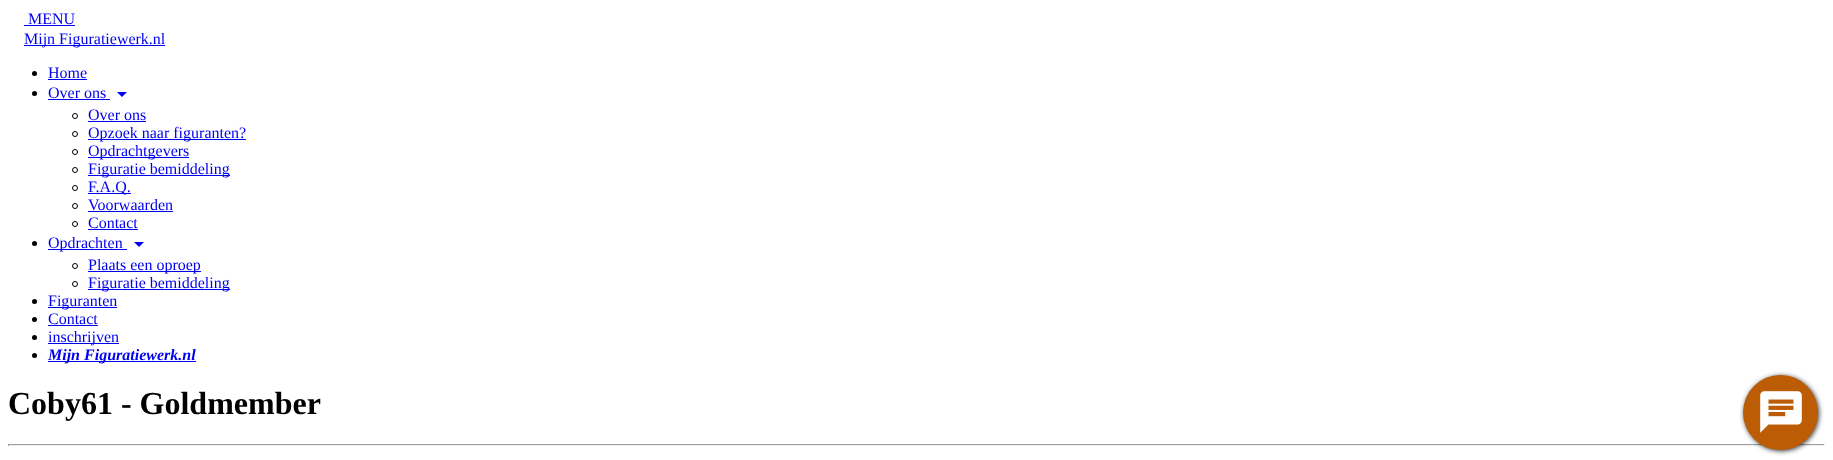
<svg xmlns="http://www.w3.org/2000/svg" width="1833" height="460">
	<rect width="100%" height="100%" fill="#FFFFFF" />
	<text x="28" y="24" font-family="Liberation Serif" font-size="16" fill="#0000EE">MENU</text>
	<rect x="24" y="25" width="51" height="1" fill="#0000EE" />
	<rect x="24" y="45" width="141" height="1" fill="#0000EE" />
	<text x="24" y="44" font-family="Liberation Serif" font-size="16" fill="#0000EE">Mijn Figuratiewerk.nl</text>
	<circle cx="34.5" cy="73.5" r="2.5" fill="#000000" />
	<text x="48" y="78" font-family="Liberation Serif" font-size="16" fill="#0000EE">Home</text>
	<rect x="48" y="79" width="39" height="1" fill="#0000EE" />
	<circle cx="34.5" cy="93.5" r="2.5" fill="#000000" />
	<text x="48" y="98" font-family="Liberation Serif" font-size="16" fill="#0000EE">Over ons</text>
	<rect x="48" y="99" width="62" height="1" fill="#0000EE" />
	<path d="M117 92H127L122 97Z" fill="#0000EE" />
	<circle cx="75" cy="116" r="2.5" fill="none" stroke="#000000" />
	<text x="88" y="120" font-family="Liberation Serif" font-size="16" fill="#0000EE">Over ons</text>
	<rect x="88" y="121" width="58" height="1" fill="#0000EE" />
	<circle cx="75" cy="134" r="2.5" fill="none" stroke="#000000" />
	<rect x="88" y="139" width="158" height="1" fill="#0000EE" />
	<text x="88" y="138" font-family="Liberation Serif" font-size="16" fill="#0000EE">Opzoek naar figuranten?</text>
	<circle cx="75" cy="152" r="2.5" fill="none" stroke="#000000" />
	<rect x="88" y="157" width="101" height="1" fill="#0000EE" />
	<text x="88" y="156" font-family="Liberation Serif" font-size="16" fill="#0000EE">Opdrachtgevers</text>
	<circle cx="75" cy="170" r="2.5" fill="none" stroke="#000000" />
	<rect x="88" y="175" width="142" height="1" fill="#0000EE" />
	<text x="88" y="174" font-family="Liberation Serif" font-size="16" fill="#0000EE">Figuratie bemiddeling</text>
	<circle cx="75" cy="188" r="2.5" fill="none" stroke="#000000" />
	<rect x="88" y="193" width="43" height="1" fill="#0000EE" />
	<text x="88" y="192" font-family="Liberation Serif" font-size="16" fill="#0000EE">F.A.Q.</text>
	<circle cx="75" cy="206" r="2.5" fill="none" stroke="#000000" />
	<text x="88" y="210" font-family="Liberation Serif" font-size="16" fill="#0000EE">Voorwaarden</text>
	<rect x="88" y="211" width="85" height="1" fill="#0000EE" />
	<circle cx="75" cy="224" r="2.5" fill="none" stroke="#000000" />
	<text x="88" y="228" font-family="Liberation Serif" font-size="16" fill="#0000EE">Contact</text>
	<rect x="88" y="229" width="50" height="1" fill="#0000EE" />
	<circle cx="34.5" cy="243.5" r="2.5" fill="#000000" />
	<rect x="48" y="249" width="79" height="1" fill="#0000EE" />
	<text x="48" y="248" font-family="Liberation Serif" font-size="16" fill="#0000EE">Opdrachten</text>
	<path d="M134 242H144L139 247Z" fill="#0000EE" />
	<circle cx="75" cy="266" r="2.5" fill="none" stroke="#000000" />
	<rect x="88" y="271" width="113" height="1" fill="#0000EE" />
	<text x="88" y="270" font-family="Liberation Serif" font-size="16" fill="#0000EE">Plaats een oproep</text>
	<circle cx="75" cy="284" r="2.5" fill="none" stroke="#000000" />
	<rect x="88" y="289" width="142" height="1" fill="#0000EE" />
	<text x="88" y="288" font-family="Liberation Serif" font-size="16" fill="#0000EE">Figuratie bemiddeling</text>
	<circle cx="34.5" cy="301.5" r="2.5" fill="#000000" />
	<rect x="48" y="307" width="69" height="1" fill="#0000EE" />
	<text x="48" y="306" font-family="Liberation Serif" font-size="16" fill="#0000EE">Figuranten</text>
	<circle cx="34.5" cy="319.5" r="2.5" fill="#000000" />
	<text x="48" y="324" font-family="Liberation Serif" font-size="16" fill="#0000EE">Contact</text>
	<rect x="48" y="325" width="50" height="1" fill="#0000EE" />
	<circle cx="34.5" cy="337.5" r="2.5" fill="#000000" />
	<rect x="48" y="343" width="71" height="1" fill="#0000EE" />
	<text x="48" y="342" font-family="Liberation Serif" font-size="16" fill="#0000EE">inschrijven</text>
	<circle cx="34.5" cy="355.5" r="2.5" fill="#000000" />
	<rect x="48" y="361" width="148" height="1" fill="#0000EE" />
	<text x="48" y="360" font-family="Liberation Serif" font-size="16" font-weight="700" font-style="italic" fill="#0000EE">Mijn Figuratiewerk.nl</text>
	<text x="8" y="414" font-family="Liberation Serif" font-size="32" font-weight="700" fill="#000000">Coby61 - Goldmember</text>
	<rect x="8" y="444" width="1817" height="1" fill="#9F9F9F" />
	<rect x="1824" y="444" width="1" height="2" fill="#EEEEEE" />
	<rect x="8" y="445" width="1817" height="1" fill="#EEEEEE" />
	<rect x="8" y="444" width="1" height="2" fill="#9F9F9F" />
	<rect x="1744" y="376" width="75" height="75" rx="37.5" fill="#000000" fill-opacity="0.8" filter="blur(2.5px)" />
	<circle cx="1780.5" cy="412.5" r="37.5" fill="#BC5C05" />
	<image x="1760" y="391" width="42" height="42" href="assets/img1.png" />
</svg>
